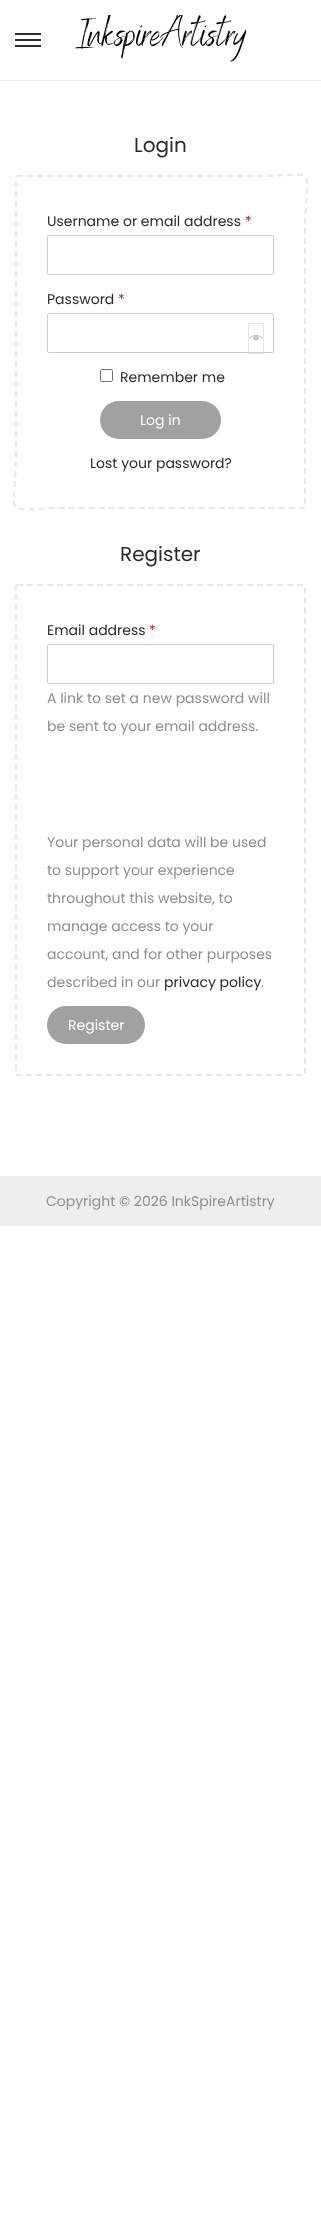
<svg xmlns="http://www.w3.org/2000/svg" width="321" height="2218">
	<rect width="100%" height="100%" fill="#FFFFFF" />
	<rect x="0" y="80" width="321" height="1" fill="#EAEAEA" />
	<rect x="15" y="39" width="26" height="2" fill="#2B2B2B" />
	<rect x="15" y="33" width="26" height="2" fill="#2B2B2B" />
	<rect x="15" y="45" width="26" height="2" fill="#2B2B2B" />
	<image x="75" y="15" width="172" height="47" href="assets/img1.png" />
	<text x="134" y="152" font-family="Poppins" font-size="20" fill="#2B2B2B">Login</text>
	<path d="M17 176H256C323 176 305 161 305 232V507L304 508H65C-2 508 16 523 16 452V177Z" fill="none" stroke="#E8E8E8" stroke-width="2" stroke-dasharray="6 4" />
	<text x="47" y="226" font-family="Poppins" font-size="14" fill="#2B2B2B">Username or email address</text>
	<text x="245" y="226" font-family="Poppins" font-size="14" fill="#B22222">*</text>
	<rect x="47.5" y="235.5" width="226" height="39" rx="1.5" fill="none" stroke="#CCCCCC" />
	<text x="47" y="304" font-family="Poppins" font-size="14" fill="#2B2B2B">Password</text>
	<text x="118" y="304" font-family="Poppins" font-size="14" fill="#B22222">*</text>
	<rect x="47.5" y="313.5" width="226" height="39" rx="1.5" fill="none" stroke="#CCCCCC" />
	<rect x="248" y="352" width="16" height="1" fill="#EFEFEF" fill-opacity="0.15" />
	<rect x="248.5" y="323.5" width="15" height="30" fill="none" stroke="#CCCCCC" stroke-opacity="0.5" />
	<image x="249" y="335" width="14" height="6" href="assets/img2.png" />
	<rect x="100.5" y="369.5" width="12" height="12" rx="1.5" fill="none" stroke="#767676" />
	<text x="120" y="382" font-family="Poppins" font-size="14" fill="#2B2B2B">Remember me</text>
	<rect x="100" y="401" width="121" height="38" rx="19" fill="#A1A1A1" />
	<text x="140" y="425" font-family="Poppins" font-size="14" fill="#FFFFFF">Log in</text>
	<text x="90" y="468" font-family="Poppins" font-size="14" fill="#2B2B2B">Lost your password?</text>
	<text x="120" y="561" font-family="Poppins" font-size="20" fill="#2B2B2B">Register</text>
	<path d="M17 585H304L305 586V1074L304 1075H17L16 1074V586Z" fill="none" stroke="#E8E8E8" stroke-width="2" stroke-dasharray="6 4" />
	<text x="47" y="635" font-family="Poppins" font-size="14" fill="#2B2B2B">Email address</text>
	<text x="149" y="635" font-family="Poppins" font-size="14" fill="#B22222">*</text>
	<rect x="47.5" y="644.5" width="226" height="39" rx="1.5" fill="none" stroke="#CCCCCC" />
	<g font-family="Poppins" font-size="14" fill="#8F8F8F">
		<text x="47" y="703">A link to set a new password will</text>
		<text x="47" y="731">be sent to your email address.</text>
		<text x="47" y="847">Your personal data will be used</text>
		<text x="47" y="875">to support your experience</text>
		<text x="47" y="903">throughout this website, to</text>
		<text x="47" y="931">manage access to your</text>
		<text x="47" y="959">account, and for other purposes</text>
		<text x="47" y="987">described in our</text>
	</g>
	<text x="164" y="987" font-family="Poppins" font-size="14" fill="#2B2B2B">privacy policy</text>
	<text x="261" y="987" font-family="Poppins" font-size="14" fill="#8F8F8F">.</text>
	<rect x="47" y="1006" width="98" height="38" rx="19" fill="#A1A1A1" />
	<text x="68" y="1030" font-family="Poppins" font-size="14" fill="#FFFFFF">Register</text>
	<rect x="0" y="1176" width="321" height="50" fill="#EEEEEC" />
	<text x="46" y="1206" font-family="Poppins" font-size="14" fill="#8F8F8F">Copyright © 2026 InkSpireArtistry</text>
</svg>
